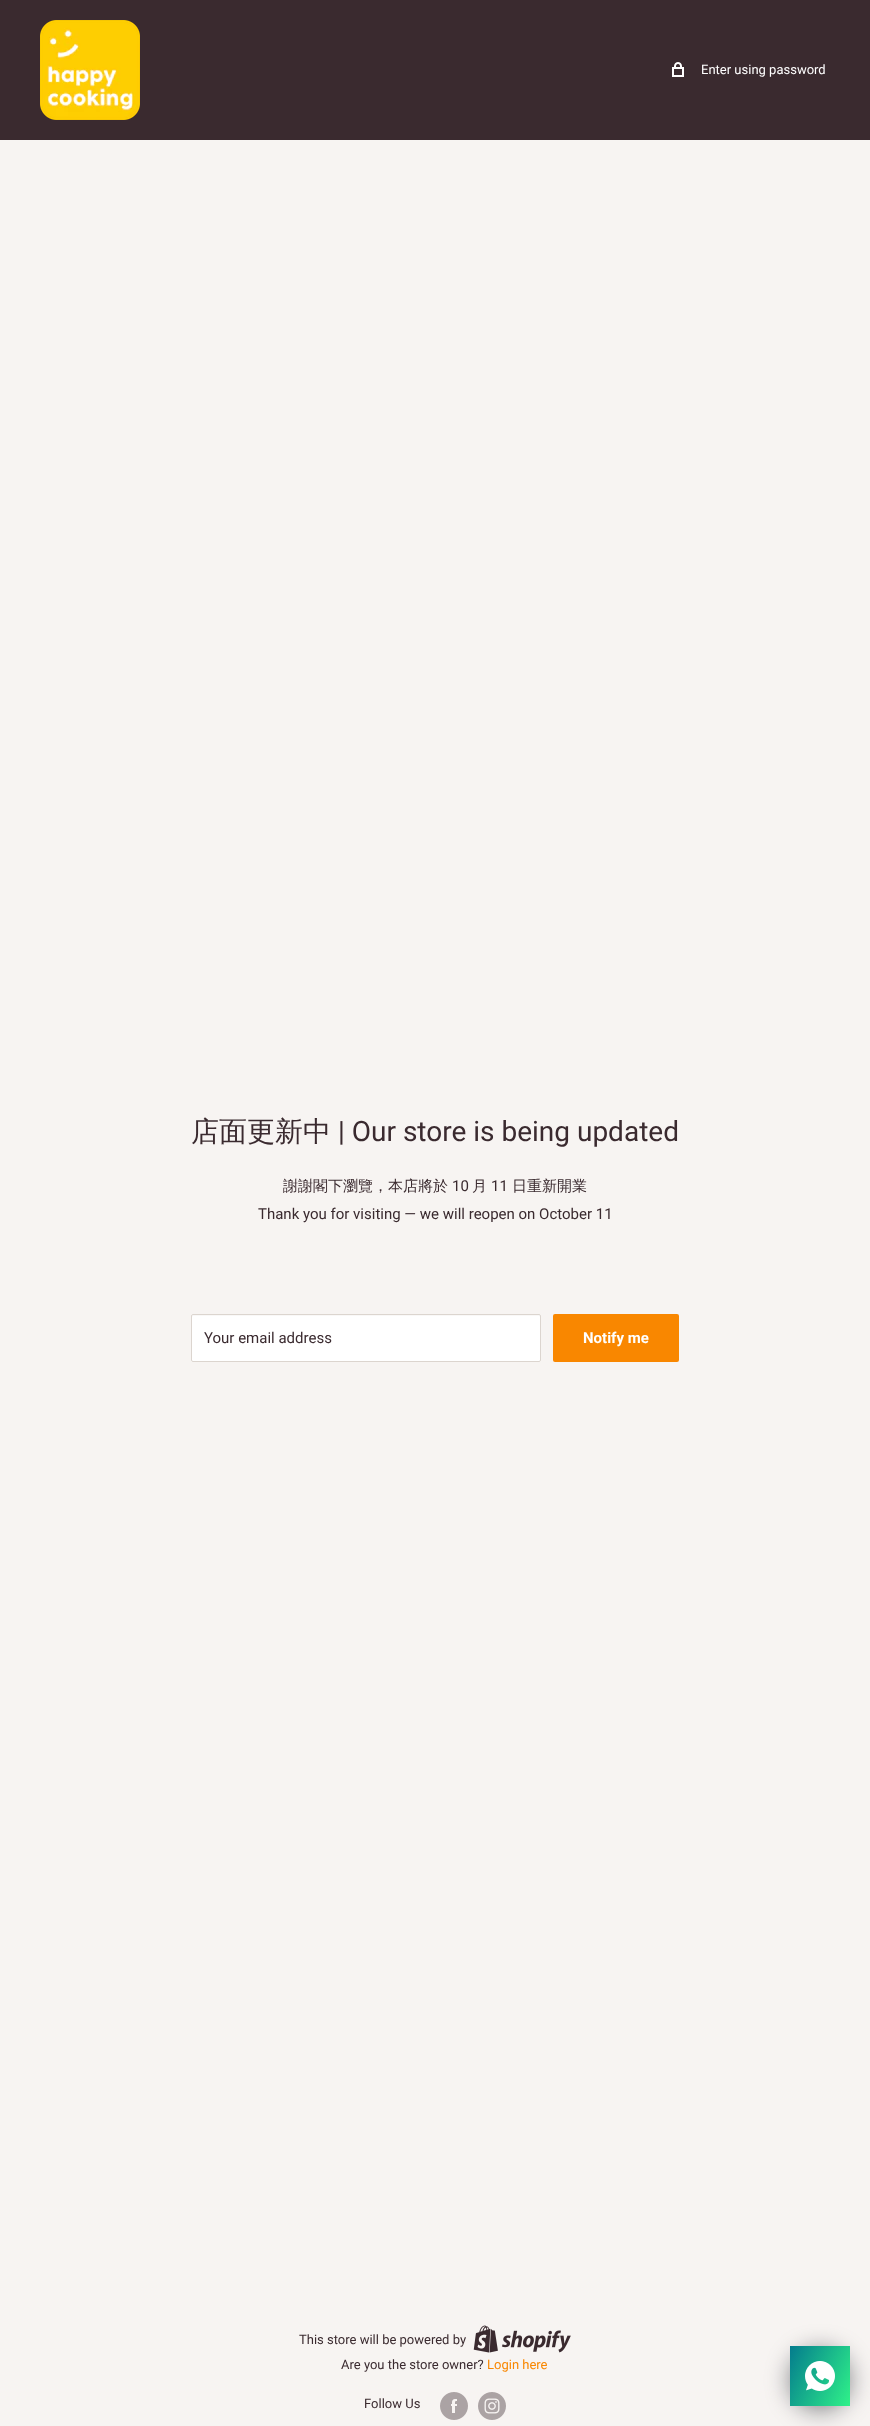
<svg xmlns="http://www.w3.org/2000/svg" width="870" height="2426">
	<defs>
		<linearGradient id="g1" gradientUnits="userSpaceOnUse" x1="784" y1="2359" x2="856" y2="2393"><stop offset="0" stop-color="#047C8D" /><stop offset="1" stop-color="#2FF289" /></linearGradient>
	</defs>
	<rect width="100%" height="100%" fill="#F7F4F2" />
	<rect x="0" y="0" width="870" height="140" fill="#3A2A2F" />
	<image x="40" y="20" width="100" height="100" href="assets/img1.png" />
	<image x="672" y="62" width="12" height="15" href="assets/img2.png" />
	<text x="701" y="74" font-family="Roboto" font-size="13" fill="#FFFFFF">Enter using password</text>
	<text x="191" y="1141" font-family="WenQuanYi Zen Hei" font-size="28" font-weight="500" fill="#3A2A2F">店面更新中</text>
	<text x="338" y="1141" font-family="Roboto" font-size="28" fill="#3A2A2F">| Our store is being updated</text>
	<text x="283" y="1191" font-family="WenQuanYi Zen Hei" font-size="15" font-weight="500" fill="#3A2A2F">謝謝閣下瀏覽，本店將於</text>
	<text x="452" y="1191" font-family="Roboto" font-size="15" fill="#3A2A2F">10</text>
	<text x="472" y="1191" font-family="WenQuanYi Zen Hei" font-size="15" font-weight="500" fill="#3A2A2F">月</text>
	<text x="491" y="1191" font-family="Roboto" font-size="15" fill="#3A2A2F">11</text>
	<text x="512" y="1191" font-family="WenQuanYi Zen Hei" font-size="15" font-weight="500" fill="#3A2A2F">日重新開業</text>
	<text x="258" y="1219" font-family="Roboto" font-size="15" fill="#3A2A2F">Thank you for visiting — we will reopen on October 11</text>
	<rect x="191" y="1314" width="350" height="48" rx="2" fill="#FFFFFF" />
	<path d="M193 1316H539L540 1317C540 1316 540 1315 539 1315H193L192 1316V1317Z" fill="#F9F8F7" />
	<rect x="191.5" y="1314.5" width="349" height="47" rx="1.5" fill="none" stroke="#DCD5CF" />
	<text x="204" y="1343" font-family="Roboto" font-size="15" fill="#3A2A2F">Your email address</text>
	<rect x="553" y="1314" width="126" height="48" rx="2" fill="#F98700" />
	<text x="583" y="1343" font-family="Roboto" font-size="15" font-weight="700" fill="#FFFFFF">Notify me</text>
	<text x="299" y="2344" font-family="Roboto" font-size="13" fill="#3A2A2F">This store will be powered by</text>
	<image x="473" y="2325" width="98" height="28" href="assets/img3.png" />
	<text x="341" y="2369" font-family="Roboto" font-size="13" fill="#3A2A2F">Are you the store owner?</text>
	<text x="487" y="2369" font-family="Roboto" font-size="13" fill="#F98700">Login here</text>
	<text x="364" y="2408" font-family="Roboto" font-size="13" fill="#3A2A2F">Follow Us</text>
	<image x="440" y="2392" width="28" height="28" href="assets/img4.png" />
	<image x="478" y="2392" width="28" height="28" href="assets/img5.png" />
	<rect x="790" y="2350" width="60" height="60" rx="30" fill="#020610" fill-opacity="0.5" filter="blur(12px)" />
	<rect x="790" y="2346" width="60" height="60" fill="url(#g1)" />
	<image x="805" y="2361" width="30" height="30" href="assets/img6.png" />
</svg>
